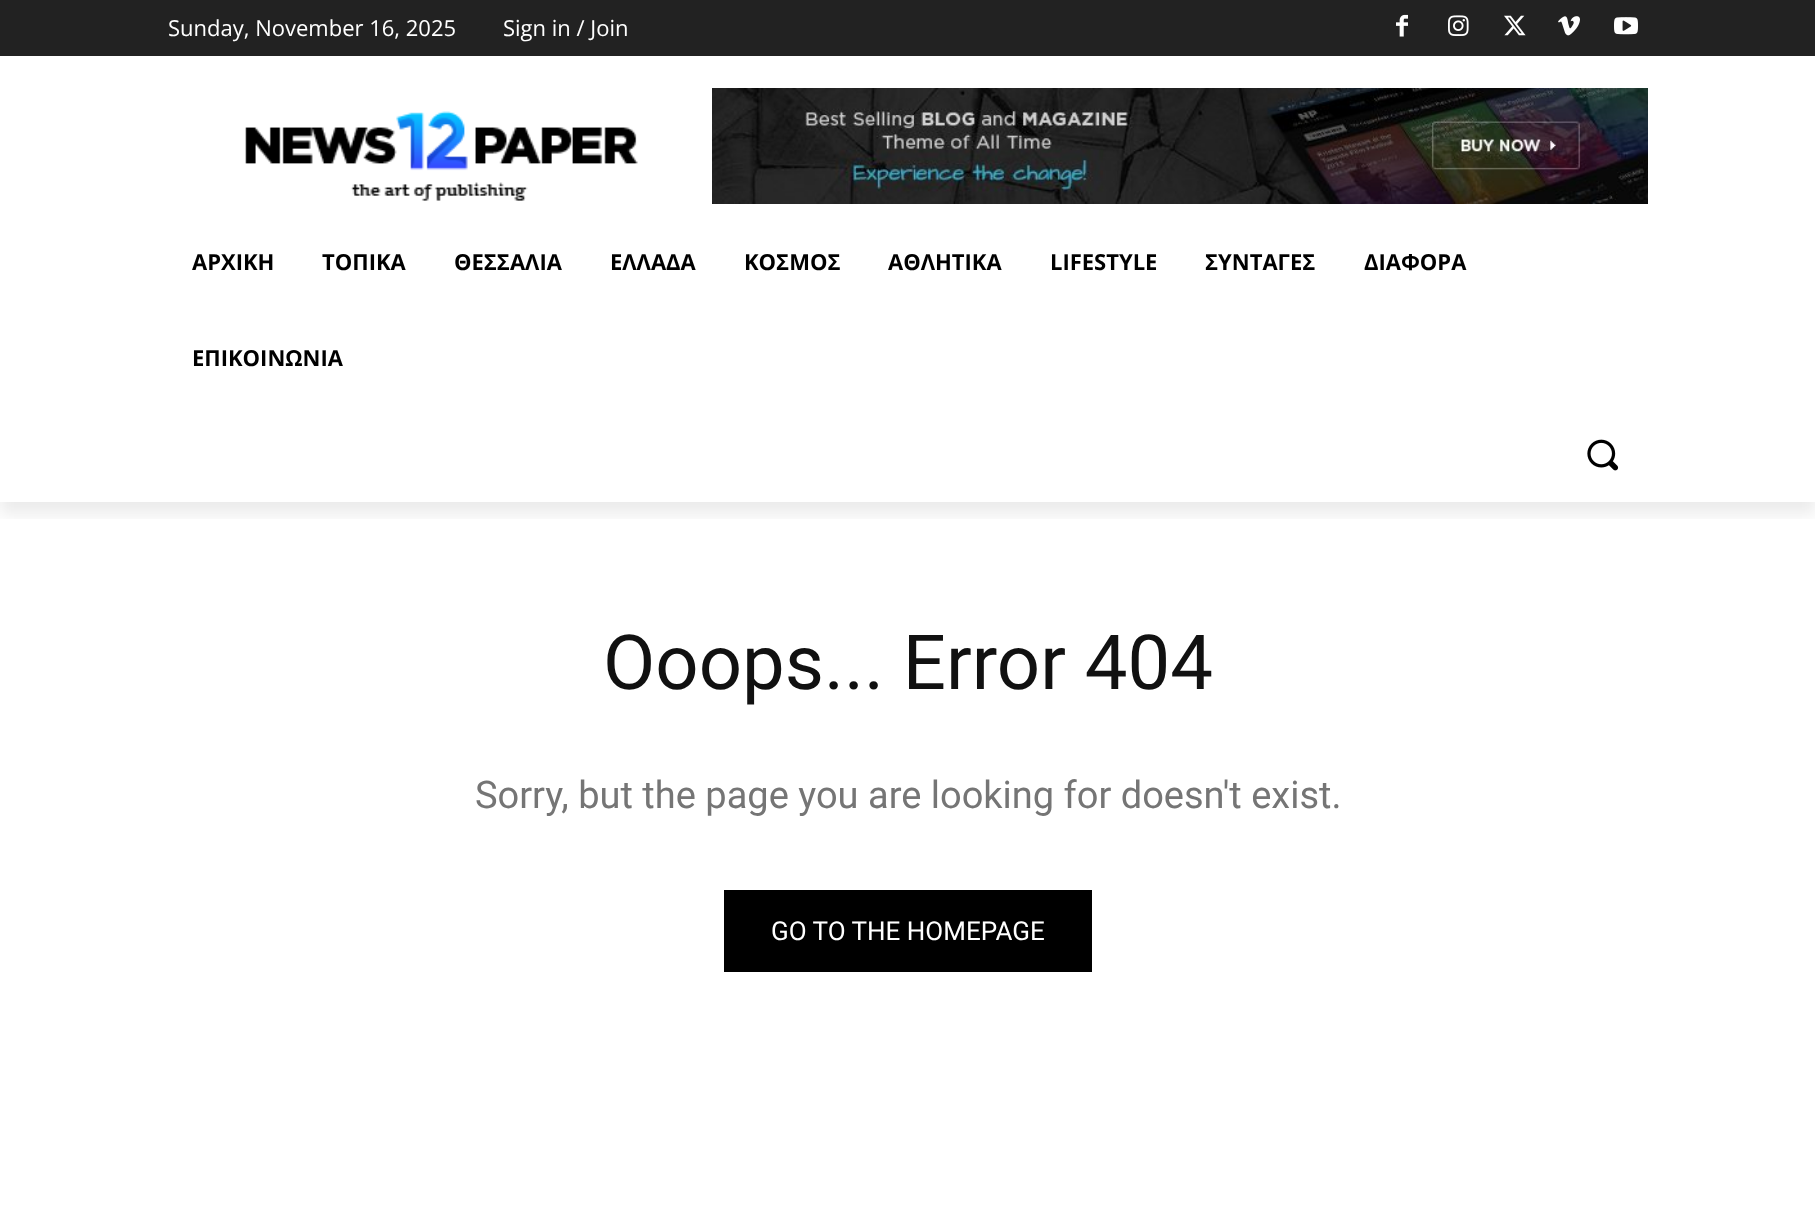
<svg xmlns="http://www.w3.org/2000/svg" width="1815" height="1210">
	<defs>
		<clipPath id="clip1"><rect x="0" y="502" width="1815" height="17" /></clipPath>
	</defs>
	<rect width="100%" height="100%" fill="#FFFFFF" />
	<rect x="0" y="0" width="1815" height="56" fill="#222222" />
	<image x="1396" y="14" width="12" height="23" href="assets/img1.png" />
	<image x="1448" y="15" width="21" height="21" href="assets/img2.png" />
	<image x="1504" y="15" width="22" height="21" href="assets/img3.png" />
	<image x="1558" y="16" width="22" height="20" href="assets/img4.png" />
	<image x="1614" y="17" width="24" height="18" href="assets/img5.png" />
	<image x="245" y="111" width="393" height="90" href="assets/img6.png" />
	<image x="712" y="88" width="936" height="116" href="assets/img7.png" />
	<g clip-path="url(#clip1)">
		<rect x="0" y="12" width="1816" height="502" fill="#000000" fill-opacity="0.08" filter="blur(8px)" />
	</g>
	<g font-family="Open Sans" font-size="22" fill="#FFFFFF">
		<text x="168" y="36">Sunday, November 16, 2025</text>
		<text x="503" y="36">Sign in / Join</text>
	</g>
	<g font-family="Open Sans" font-size="22" font-weight="700" fill="#000000">
		<text x="192" y="270">ΑΡΧΙΚΗ</text>
		<text x="322" y="270">ΤΟΠΙΚΑ</text>
		<text x="454" y="270">ΘΕΣΣΑΛΙΑ</text>
		<text x="610" y="270">ΕΛΛΑΔΑ</text>
		<text x="744" y="270">ΚΟΣΜΟΣ</text>
		<text x="888" y="270">ΑΘΛΗΤΙΚΑ</text>
		<text x="1050" y="270">LIFESTYLE</text>
		<text x="1205" y="270">ΣΥΝΤΑΓΕΣ</text>
		<text x="1364" y="270">ΔΙΑΦΟΡΑ</text>
		<text x="192" y="366">ΕΠΙΚΟΙΝΩΝΙΑ</text>
	</g>
	<image x="1587" y="439" width="32" height="32" href="assets/img8.png" />
	<text x="603" y="689" font-family="Roboto" font-size="76" fill="#111111">Ooops... Error 404</text>
	<text x="475" y="808" font-family="Roboto" font-size="38" fill="#757575">Sorry, but the page you are looking for doesn't exist.</text>
	<rect x="724" y="890" width="368" height="82" fill="#000000" />
	<text x="771" y="940" font-family="Roboto" font-size="26" fill="#FFFFFF">GO TO THE HOMEPAGE</text>
</svg>
